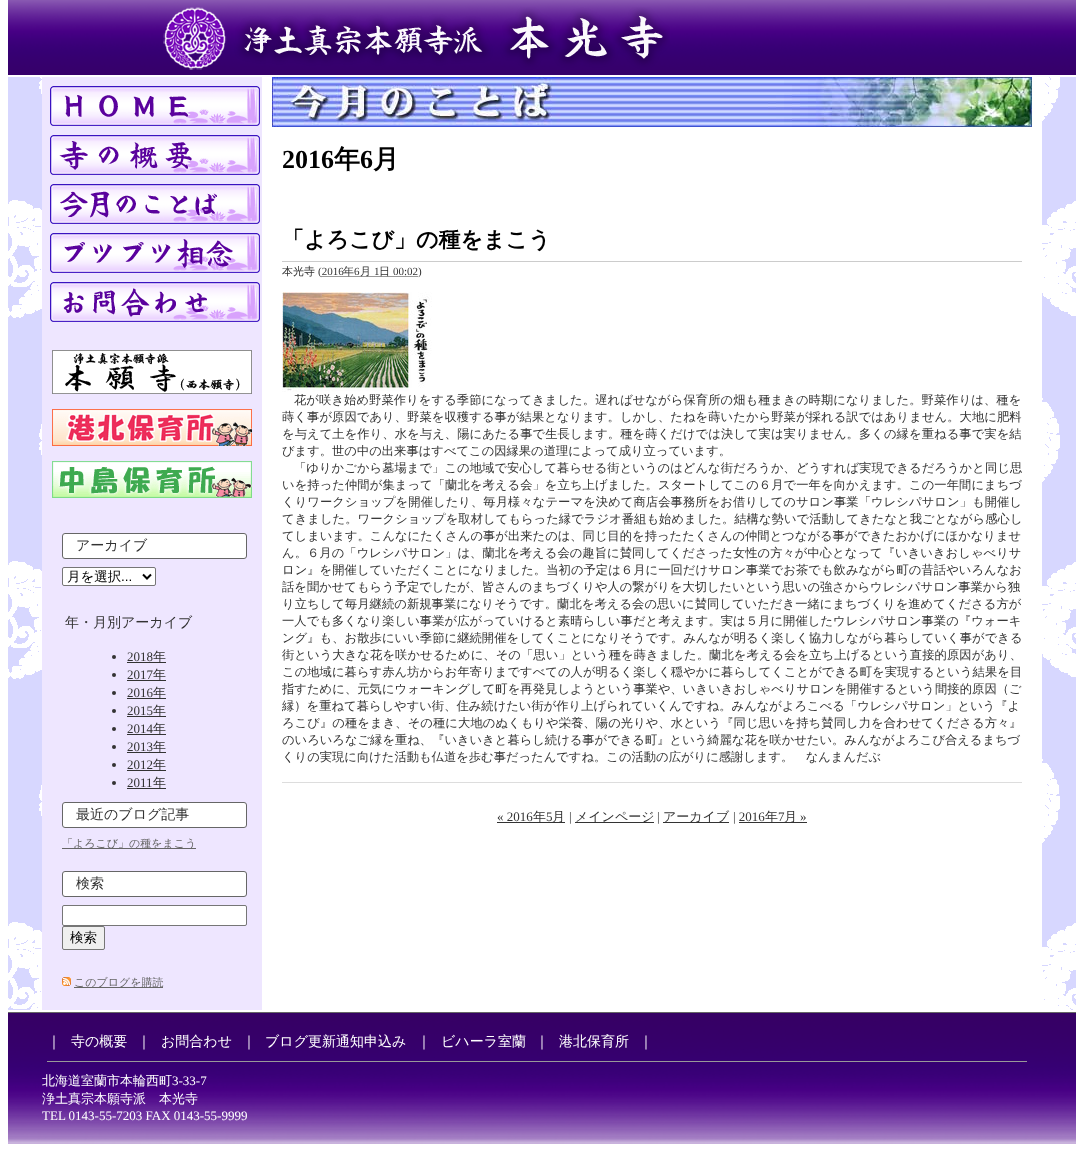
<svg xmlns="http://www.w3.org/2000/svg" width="1084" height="1170">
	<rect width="100%" height="100%" fill="#FFFFFF" />
	<image x="8" y="0" width="1068" height="75" href="assets/img1.png" />
	<image x="163" y="7" width="507" height="63" href="assets/img2.png" />
	<rect x="8" y="77" width="1068" height="933" fill="#D7D7FF" />
	<image x="8" y="77" width="1068" height="933" href="assets/img3.png" />
	<rect x="262" y="77" width="780" height="933" fill="#FFFFFF" />
	<rect x="42" y="77" width="220" height="933" fill="#EEE6FF" />
	<image x="50" y="86" width="210" height="40" href="assets/img4.png" />
	<image x="50" y="135" width="210" height="40" href="assets/img5.png" />
	<image x="50" y="184" width="210" height="40" href="assets/img6.png" />
	<image x="50" y="233" width="210" height="40" href="assets/img7.png" />
	<image x="50" y="282" width="210" height="40" href="assets/img8.png" />
	<image x="52" y="350" width="200" height="44" href="assets/img9.png" />
	<image x="52" y="409" width="200" height="37" href="assets/img10.png" />
	<image x="52" y="461" width="200" height="37" href="assets/img11.png" />
	<rect x="62.5" y="533.5" width="184" height="25" rx="2.5" fill="#FFFFFF" stroke="#666666" />
	<text x="76" y="550" font-family="WenQuanYi Zen Hei" font-size="14" font-weight="500" fill="#333333">アーカイブ</text>
	<rect x="62.5" y="567.5" width="93" height="18" rx="1.5" fill="#FFFFFF" stroke="#767676" />
	<path d="M143 574.5L147 578.5L151 574.5" fill="none" stroke="#000000" stroke-width="2" />
	<text x="67" y="581" font-family="WenQuanYi Zen Hei" font-size="13.5" font-weight="500" fill="#000000">月を選択</text>
	<text x="121" y="581" font-family="Liberation Sans" font-size="13.5" fill="#000000">...</text>
	<text x="65" y="627" font-family="WenQuanYi Zen Hei" font-size="14" font-weight="500" fill="#333333">年・月別アーカイブ</text>
	<circle cx="114" cy="657" r="2" fill="#333333" />
	<text x="127" y="661" font-family="Liberation Serif" font-size="13" fill="#333333">2018</text>
	<rect x="127" y="662" width="39" height="1" fill="#333333" />
	<text x="153" y="661" font-family="WenQuanYi Zen Hei" font-size="13" font-weight="500" fill="#333333">年</text>
	<circle cx="114" cy="675" r="2" fill="#333333" />
	<text x="127" y="679" font-family="Liberation Serif" font-size="13" fill="#333333">2017</text>
	<rect x="127" y="680" width="39" height="1" fill="#333333" />
	<text x="153" y="679" font-family="WenQuanYi Zen Hei" font-size="13" font-weight="500" fill="#333333">年</text>
	<circle cx="114" cy="693" r="2" fill="#333333" />
	<text x="127" y="697" font-family="Liberation Serif" font-size="13" fill="#333333">2016</text>
	<rect x="127" y="698" width="39" height="1" fill="#333333" />
	<text x="153" y="697" font-family="WenQuanYi Zen Hei" font-size="13" font-weight="500" fill="#333333">年</text>
	<circle cx="114" cy="711" r="2" fill="#333333" />
	<text x="127" y="715" font-family="Liberation Serif" font-size="13" fill="#333333">2015</text>
	<rect x="127" y="716" width="39" height="1" fill="#333333" />
	<text x="153" y="715" font-family="WenQuanYi Zen Hei" font-size="13" font-weight="500" fill="#333333">年</text>
	<circle cx="114" cy="729" r="2" fill="#333333" />
	<text x="127" y="733" font-family="Liberation Serif" font-size="13" fill="#333333">2014</text>
	<rect x="127" y="734" width="39" height="1" fill="#333333" />
	<text x="153" y="733" font-family="WenQuanYi Zen Hei" font-size="13" font-weight="500" fill="#333333">年</text>
	<circle cx="114" cy="747" r="2" fill="#333333" />
	<text x="127" y="751" font-family="Liberation Serif" font-size="13" fill="#333333">2013</text>
	<rect x="127" y="752" width="39" height="1" fill="#333333" />
	<text x="153" y="751" font-family="WenQuanYi Zen Hei" font-size="13" font-weight="500" fill="#333333">年</text>
	<circle cx="114" cy="765" r="2" fill="#333333" />
	<text x="127" y="769" font-family="Liberation Serif" font-size="13" fill="#333333">2012</text>
	<rect x="127" y="770" width="39" height="1" fill="#333333" />
	<text x="153" y="769" font-family="WenQuanYi Zen Hei" font-size="13" font-weight="500" fill="#333333">年</text>
	<circle cx="114" cy="783" r="2" fill="#333333" />
	<text x="127" y="787" font-family="Liberation Serif" font-size="13" fill="#333333">2011</text>
	<rect x="127" y="788" width="39" height="1" fill="#333333" />
	<text x="153" y="787" font-family="WenQuanYi Zen Hei" font-size="13" font-weight="500" fill="#333333">年</text>
	<rect x="62.5" y="802.5" width="184" height="25" rx="2.5" fill="#FFFFFF" stroke="#666666" />
	<text x="76" y="819" font-family="WenQuanYi Zen Hei" font-size="14" font-weight="500" fill="#333333">最近のブログ記事</text>
	<rect x="62" y="848" width="134" height="1" fill="#666666" />
	<text x="62" y="847" font-family="WenQuanYi Zen Hei" font-size="11" font-weight="500" fill="#666666">「よろこび」の種をまこう</text>
	<rect x="62.5" y="871.5" width="184" height="25" rx="2.5" fill="#FFFFFF" stroke="#666666" />
	<text x="76" y="888" font-family="WenQuanYi Zen Hei" font-size="14" font-weight="500" fill="#333333">検索</text>
	<rect x="62.5" y="905.5" width="184" height="20" rx="1.5" fill="#FFFFFF" stroke="#767676" />
	<rect x="62.5" y="926.5" width="42" height="23" rx="1.5" fill="#EFEFEF" stroke="#767676" />
	<text x="70" y="942" font-family="WenQuanYi Zen Hei" font-size="13.5" font-weight="500" fill="#000000">検索</text>
	<image x="62" y="977" width="9" height="9" href="assets/img12.png" />
	<rect x="74" y="987" width="89" height="1" fill="#666666" />
	<text x="74" y="986" font-family="WenQuanYi Zen Hei" font-size="11" font-weight="500" fill="#666666">このブログを購読</text>
	<image x="272" y="77" width="760" height="50" href="assets/img13.png" />
	<text x="282" y="168" font-family="Liberation Serif" font-size="26" font-weight="700" fill="#000000">2016</text>
	<text x="334" y="168" font-family="WenQuanYi Zen Hei" font-size="26" font-weight="700" fill="#000000">年</text>
	<text x="360" y="168" font-family="Liberation Serif" font-size="26" font-weight="700" fill="#000000">6</text>
	<text x="373" y="168" font-family="WenQuanYi Zen Hei" font-size="26" font-weight="700" fill="#000000">月</text>
	<text x="282" y="247" font-family="WenQuanYi Zen Hei" font-size="22" font-weight="700" fill="#000000">「よろこび」の種をまこう</text>
	<rect x="282" y="261" width="740" height="1" fill="#CCCCCC" />
	<text x="282" y="275" font-family="WenQuanYi Zen Hei" font-size="11" font-weight="500" fill="#333333">本光寺</text>
	<text x="318" y="275" font-family="Liberation Serif" font-size="11" fill="#333333">(2016</text>
	<path d="M321.5 276.5H418" fill="none" stroke="#333333" stroke-dasharray="1 1" />
	<text x="343" y="275" font-family="WenQuanYi Zen Hei" font-size="11" font-weight="500" fill="#333333">年</text>
	<text x="354" y="275" font-family="Liberation Serif" font-size="11" fill="#333333">6</text>
	<text x="360" y="275" font-family="WenQuanYi Zen Hei" font-size="11" font-weight="500" fill="#333333">月</text>
	<text x="374" y="275" font-family="Liberation Serif" font-size="11" fill="#333333">1</text>
	<text x="379" y="275" font-family="WenQuanYi Zen Hei" font-size="11" font-weight="500" fill="#333333">日</text>
	<text x="393" y="275" font-family="Liberation Serif" font-size="11" fill="#333333">00:02)</text>
	<image x="282" y="292" width="150" height="100" href="assets/img14.png" />
	<g font-family="WenQuanYi Zen Hei" font-size="12.3" font-weight="500" letter-spacing="0.07" fill="#333333">
		<text x="294" y="404">花が咲き始め野菜作りをする季節になってきました。遅ればせながら保育所の畑も種まきの時期になりました。野菜作りは、種を</text>
		<text x="282" y="421">蒔く事が原因であり、野菜を収穫する事が結果となります。しかし、たねを蒔いたから野菜が採れる訳ではありません。大地に肥料</text>
		<text x="282" y="438">を与えて土を作り、水を与え、陽にあたる事で生長します。種を蒔くだけでは決して実は実りません。多くの縁を重ねる事で実を結</text>
	</g>
	<text x="282" y="455" font-family="WenQuanYi Zen Hei" font-size="12.3" font-weight="500" fill="#333333">びます。世の中の出来事はすべてこの因縁果の道理によって成り立っています。</text>
	<text x="294" y="472" font-family="WenQuanYi Zen Hei" font-size="12.3" font-weight="500" letter-spacing="0.05" fill="#333333">「ゆりかごから墓場まで」この地域で安心して暮らせる街というのはどんな街だろうか、どうすれば実現できるだろうかと同じ思</text>
	<g font-family="WenQuanYi Zen Hei" font-size="12.3" font-weight="500" letter-spacing="0.07" fill="#333333">
		<text x="282" y="489">いを持った仲間が集まって「蘭北を考える会」を立ち上げました。スタートしてこの６月で一年を向かえます。この一年間にまちづ</text>
		<text x="282" y="506">くりワークショップを開催したり、毎月様々なテーマを決めて商店会事務所をお借りしてのサロン事業「ウレシパサロン」も開催し</text>
	</g>
	<text x="282" y="523" font-family="WenQuanYi Zen Hei" font-size="12.3" font-weight="500" letter-spacing="0.05" fill="#333333">てきました。ワークショップを取材してもらった縁でラジオ番組も始めました。結構な勢いで活動してきたなと我ごとながら感心し</text>
	<text x="282" y="540" font-family="WenQuanYi Zen Hei" font-size="12.3" font-weight="500" fill="#333333">てしまいます。こんなにたくさんの事が出来たのは、同じ目的を持ったたくさんの仲間とつながる事ができたおかげにほかなりませ</text>
	<g font-family="WenQuanYi Zen Hei" font-size="12.3" font-weight="500" letter-spacing="0.05" fill="#333333">
		<text x="282" y="557">ん。６月の「ウレシパサロン」は、蘭北を考える会の趣旨に賛同してくださった女性の方々が中心となって『いきいきおしゃべりサ</text>
		<text x="282" y="574">ロン』を開催していただくことになりました。当初の予定は６月に一回だけサロン事業でお茶でも飲みながら町の昔話やいろんなお</text>
	</g>
	<text x="282" y="591" font-family="WenQuanYi Zen Hei" font-size="12.3" font-weight="500" fill="#333333">話を聞かせてもらう予定でしたが、皆さんのまちづくりや人の繋がりを大切したいという思いの強さからウレシパサロン事業から独</text>
	<g font-family="WenQuanYi Zen Hei" font-size="12.3" font-weight="500" letter-spacing="0.05" fill="#333333">
		<text x="282" y="608">り立ちして毎月継続の新規事業になりそうです。蘭北を考える会の思いに賛同していただき一緒にまちづくりを進めてくださる方が</text>
		<text x="282" y="625">一人でも多くなり楽しい事業が広がっていけると素晴らしい事だと考えます。実は５月に開催したウレシパサロン事業の『ウォーキ</text>
		<text x="282" y="642">ング』も、お散歩にいい季節に継続開催をしてくことになりそうです。みんなが明るく楽しく協力しながら暮らしていく事ができる</text>
	</g>
	<text x="282" y="659" font-family="WenQuanYi Zen Hei" font-size="12.3" font-weight="500" letter-spacing="0.07" fill="#333333">街という大きな花を咲かせるために、その「思い」という種を蒔きました。蘭北を考える会を立ち上げるという直接的原因があり、</text>
	<g font-family="WenQuanYi Zen Hei" font-size="12.3" font-weight="500" letter-spacing="0.05" fill="#333333">
		<text x="282" y="676">この地域に暮らす赤ん坊からお年寄りまですべての人が明るく楽しく穏やかに暮らしてくことができる町を実現するという結果を目</text>
		<text x="282" y="693">指すために、元気にウォーキングして町を再発見しようという事業や、いきいきおしゃべりサロンを開催するという間接的原因（ご</text>
	</g>
	<text x="282" y="710" font-family="WenQuanYi Zen Hei" font-size="12.3" font-weight="500" fill="#333333">縁）を重ねて暮らしやすい街、住み続けたい街が作り上げられていくんですね。みんながよろこべる「ウレシパサロン」という『よ</text>
	<text x="282" y="727" font-family="WenQuanYi Zen Hei" font-size="12.3" font-weight="500" letter-spacing="0.07" fill="#333333">ろこび』の種をまき、その種に大地のぬくもりや栄養、陽の光りや、水という『同じ思いを持ち賛同し力を合わせてくださる方々』</text>
	<g font-family="WenQuanYi Zen Hei" font-size="12.3" font-weight="500" fill="#333333">
		<text x="282" y="744">のいろいろなご縁を重ね、『いきいきと暮らし続ける事ができる町』という綺麗な花を咲かせたい。みんながよろこび合えるまちづ</text>
		<text x="282" y="761">くりの実現に向けた活動も仏道を歩む事だったんですね。この活動の広がりに感謝します。　なんまんだぶ</text>
	</g>
	<rect x="282" y="782" width="740" height="1" fill="#DDDDDD" />
	<text x="497" y="821" font-family="Liberation Serif" font-size="13" fill="#333333">« 2016</text>
	<rect x="497" y="822" width="68" height="1" fill="#333333" />
	<text x="533" y="821" font-family="WenQuanYi Zen Hei" font-size="13" font-weight="500" fill="#333333">年</text>
	<text x="546" y="821" font-family="Liberation Serif" font-size="13" fill="#333333">5</text>
	<text x="552" y="821" font-family="WenQuanYi Zen Hei" font-size="13" font-weight="500" fill="#333333">月</text>
	<text x="569" y="821" font-family="Liberation Serif" font-size="13" fill="#333333">|</text>
	<rect x="575" y="822" width="79" height="1" fill="#333333" />
	<text x="575" y="821" font-family="WenQuanYi Zen Hei" font-size="13" font-weight="500" fill="#333333">メインページ</text>
	<text x="657" y="821" font-family="Liberation Serif" font-size="13" fill="#333333">|</text>
	<rect x="663" y="822" width="66" height="1" fill="#333333" />
	<text x="663" y="821" font-family="WenQuanYi Zen Hei" font-size="13" font-weight="500" fill="#333333">アーカイブ</text>
	<text x="733" y="821" font-family="Liberation Serif" font-size="13" fill="#333333">| 2016</text>
	<rect x="739" y="822" width="68" height="1" fill="#333333" />
	<text x="765" y="821" font-family="WenQuanYi Zen Hei" font-size="13" font-weight="500" fill="#333333">年</text>
	<text x="778" y="821" font-family="Liberation Serif" font-size="13" fill="#333333">7</text>
	<text x="784" y="821" font-family="WenQuanYi Zen Hei" font-size="13" font-weight="500" fill="#333333">月</text>
	<text x="800" y="821" font-family="Liberation Serif" font-size="13" fill="#333333">»</text>
	<image x="8" y="1013" width="1068" height="131" href="assets/img15.png" />
	<rect x="8" y="1012" width="1068" height="1" fill="#666666" />
	<rect x="47" y="1061" width="980" height="1" fill="#999999" />
	<g font-family="WenQuanYi Zen Hei" font-size="14" font-weight="500" fill="#FFFFFF">
		<text x="47" y="1046">｜</text>
		<text x="71" y="1046">寺の概要</text>
		<text x="137" y="1046">｜</text>
		<text x="161" y="1046">お問合わせ</text>
		<text x="242" y="1046">｜</text>
		<text x="265" y="1046">ブログ更新通知申込み</text>
		<text x="417" y="1046">｜</text>
		<text x="441" y="1046">ビハーラ室蘭</text>
		<text x="535" y="1046">｜</text>
		<text x="559" y="1046">港北保育所</text>
		<text x="639" y="1046">｜</text>
	</g>
	<text x="42" y="1085" font-family="WenQuanYi Zen Hei" font-size="13" font-weight="500" fill="#FFFFFF">北海道室蘭市本輪西町</text>
	<text x="172" y="1085" font-family="Liberation Serif" font-size="13" fill="#FFFFFF">3-33-7</text>
	<text x="42" y="1103" font-family="WenQuanYi Zen Hei" font-size="13" font-weight="500" fill="#FFFFFF">浄土真宗本願寺派　本光寺</text>
	<text x="42" y="1120" font-family="Liberation Serif" font-size="13" fill="#FFFFFF">TEL 0143-55-7203 FAX 0143-55-9999</text>
</svg>
